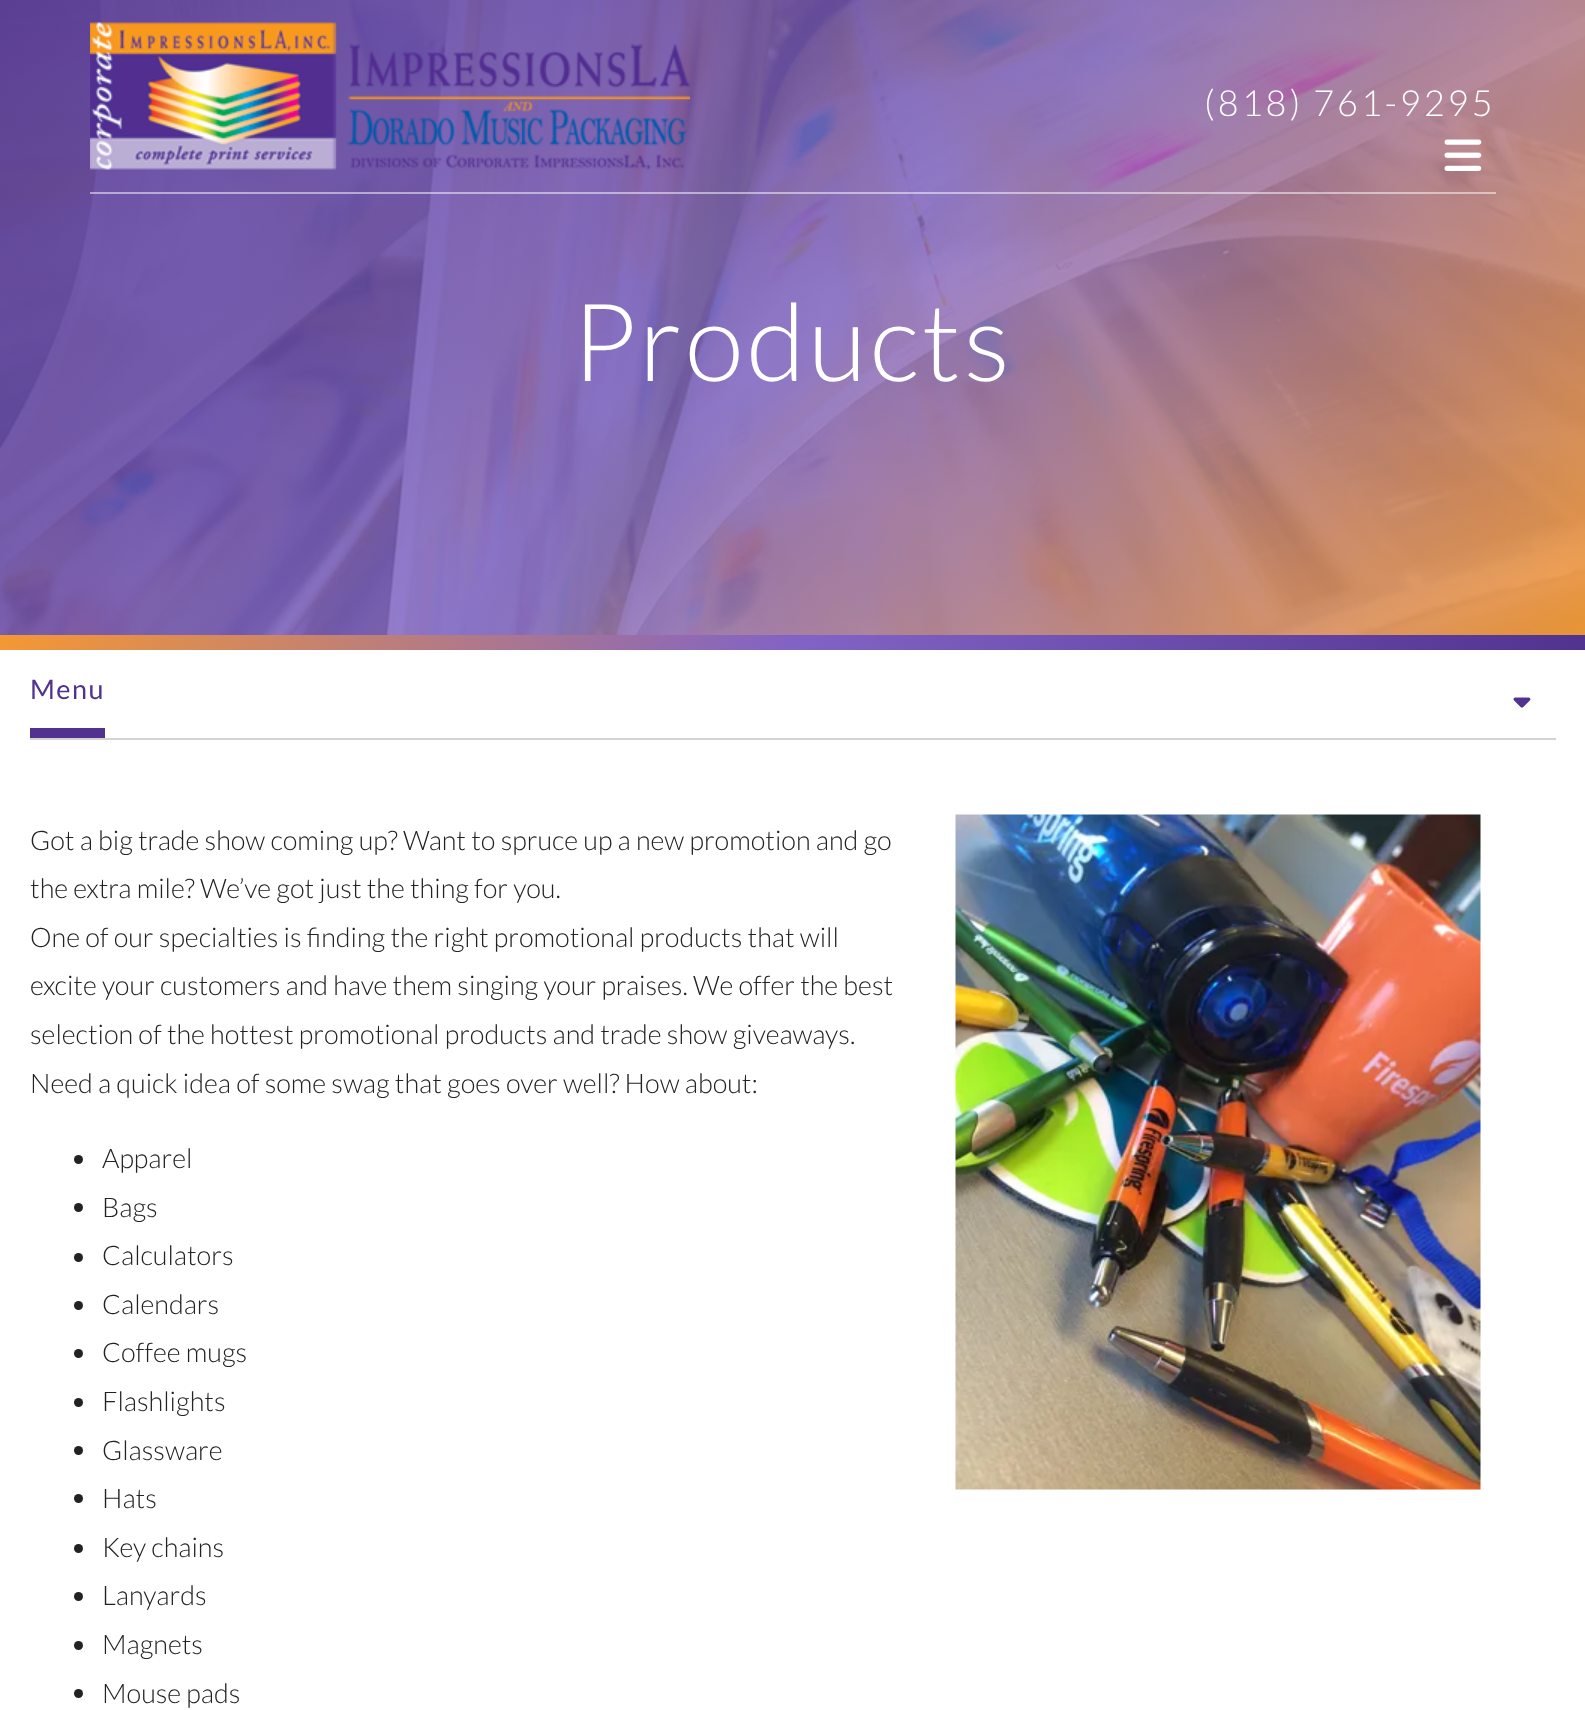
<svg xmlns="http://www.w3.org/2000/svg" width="1585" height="1710">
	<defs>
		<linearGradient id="g1" gradientUnits="userSpaceOnUse" x1="234" y1="-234" x2="1352" y2="884"><stop offset="0" stop-color="#51328F" stop-opacity="0.9" /><stop offset="0.5" stop-color="#8163C5" stop-opacity="0.8" /><stop offset="0.51" stop-color="#8163C5" stop-opacity="0.8" /><stop offset="1" stop-color="#F69832" stop-opacity="0.9" /></linearGradient>
		<linearGradient id="g2" gradientUnits="userSpaceOnUse" x1="393" y1="242" x2="1193" y2="1042"><stop offset="0" stop-color="#F69832" /><stop offset="0.5" stop-color="#8163C5" /><stop offset="0.51" stop-color="#8163C5" /><stop offset="1" stop-color="#51328F" /></linearGradient>
	</defs>
	<rect width="100%" height="100%" fill="#FFFFFF" />
	<image x="0" y="0" width="1585" height="635" href="assets/img3.png" />
	<rect x="0" y="0" width="1585" height="635" fill="url(#g1)" />
	<rect x="90" y="192" width="1406" height="2" fill="#FFFFFF" fill-opacity="0.5" />
	<image x="90" y="22" width="600" height="148" href="assets/img1.png" />
	<text x="1204" y="116" font-family="Lato" font-size="36" font-weight="300" letter-spacing="3" fill="#FFFFFF">(818) 761-9295</text>
	<image x="1444" y="139" width="38" height="32" href="assets/img2.png" />
	<text x="572" y="381" font-family="Lato" font-size="108" font-weight="300" letter-spacing="3" fill="#FFFFFF">Products</text>
	<rect x="0" y="635" width="1585" height="15" fill="url(#g2)" />
	<rect x="30" y="738" width="1526" height="2" fill="#D3D3D3" />
	<rect x="30" y="728" width="75" height="10" fill="#51328F" />
	<text x="30" y="699" font-family="Lato" font-size="27" letter-spacing="1.5" fill="#51328F">Menu</text>
	<image x="1513" y="697" width="18" height="11" href="assets/img4.png" />
	<g font-family="Lato" font-size="27" font-weight="300" fill="#222222">
		<text x="30" y="850">Got a big trade show coming up? Want to spruce up a new promotion and go</text>
		<text x="30" y="898">the extra mile? We’ve got just the thing for you.</text>
		<text x="30" y="947">One of our specialties is finding the right promotional products that will</text>
		<text x="30" y="995">excite your customers and have them singing your praises. We offer the best</text>
		<text x="30" y="1044">selection of the hottest promotional products and trade show giveaways.</text>
		<text x="30" y="1093">Need a quick idea of some swag that goes over well? How about:</text>
	</g>
	<circle cx="78.5" cy="1159.5" r="4.5" fill="#222222" />
	<text x="102" y="1168" font-family="Lato" font-size="27" font-weight="300" fill="#222222">Apparel</text>
	<circle cx="78.5" cy="1207.5" r="4.5" fill="#222222" />
	<text x="102" y="1217" font-family="Lato" font-size="27" font-weight="300" fill="#222222">Bags</text>
	<circle cx="78.5" cy="1257.5" r="4.5" fill="#222222" />
	<text x="102" y="1265" font-family="Lato" font-size="27" font-weight="300" fill="#222222">Calculators</text>
	<circle cx="78.5" cy="1305.5" r="4.5" fill="#222222" />
	<text x="102" y="1314" font-family="Lato" font-size="27" font-weight="300" fill="#222222">Calendars</text>
	<circle cx="78.5" cy="1353.5" r="4.5" fill="#222222" />
	<text x="102" y="1362" font-family="Lato" font-size="27" font-weight="300" fill="#222222">Coffee mugs</text>
	<circle cx="78.5" cy="1402.5" r="4.5" fill="#222222" />
	<text x="102" y="1411" font-family="Lato" font-size="27" font-weight="300" fill="#222222">Flashlights</text>
	<circle cx="78.5" cy="1450.5" r="4.5" fill="#222222" />
	<text x="102" y="1460" font-family="Lato" font-size="27" font-weight="300" fill="#222222">Glassware</text>
	<circle cx="78.5" cy="1498.5" r="4.5" fill="#222222" />
	<text x="102" y="1508" font-family="Lato" font-size="27" font-weight="300" fill="#222222">Hats</text>
	<circle cx="78.5" cy="1548.5" r="4.5" fill="#222222" />
	<text x="102" y="1557" font-family="Lato" font-size="27" font-weight="300" fill="#222222">Key chains</text>
	<circle cx="78.5" cy="1596.5" r="4.5" fill="#222222" />
	<text x="102" y="1605" font-family="Lato" font-size="27" font-weight="300" fill="#222222">Lanyards</text>
	<circle cx="78.5" cy="1645.5" r="4.5" fill="#222222" />
	<text x="102" y="1654" font-family="Lato" font-size="27" font-weight="300" fill="#222222">Magnets</text>
	<circle cx="78.5" cy="1693.5" r="4.5" fill="#222222" />
	<text x="102" y="1703" font-family="Lato" font-size="27" font-weight="300" fill="#222222">Mouse pads</text>
	<image x="955" y="814" width="526" height="676" href="assets/img5.png" />
</svg>
